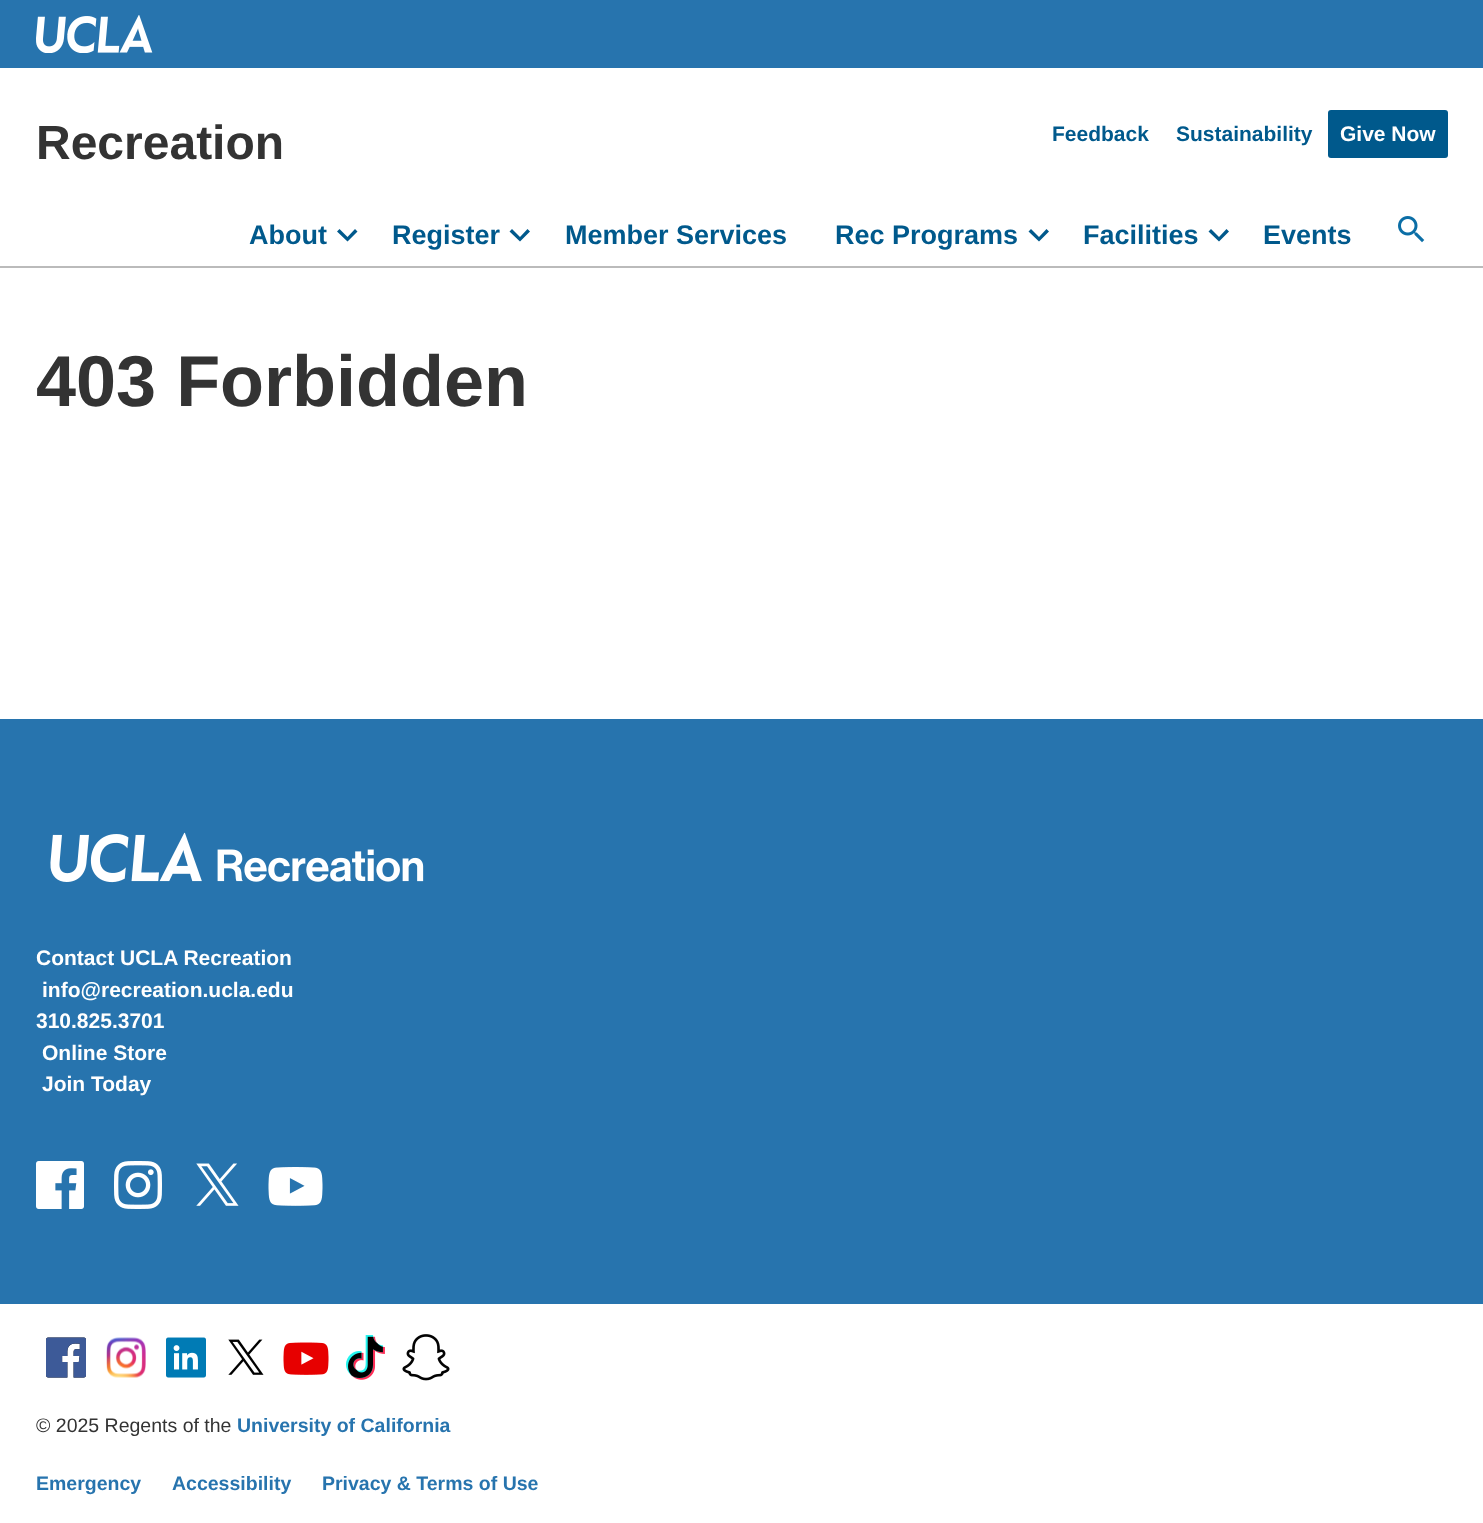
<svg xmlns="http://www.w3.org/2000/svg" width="1483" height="1523">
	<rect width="100%" height="100%" fill="#FFFFFF" />
	<rect x="0" y="0" width="1483" height="68" fill="#2774AE" />
	<image x="36" y="15" width="117" height="38" href="assets/img1.png" />
	<rect x="0" y="266" width="1483" height="2" fill="#BBBBBB" />
	<text x="36" y="159" font-family="Liberation Sans" font-size="48" font-weight="700" fill="#333333">Recreation</text>
	<g font-family="Liberation Sans" font-size="21" font-weight="700" fill="#00598C">
		<text x="1052" y="141">Feedback</text>
		<text x="1176" y="141">Sustainability</text>
	</g>
	<rect x="1328" y="110" width="120" height="48" rx="3" fill="#00598C" />
	<text x="1340" y="141" font-family="Liberation Sans" font-size="21" font-weight="700" fill="#FFFFFF">Give Now</text>
	<path d="M339.5 229L347.5 237L355 229L357.5 231.5L347.5 241.5L337 231.5Z" fill="#00598C" fill-rule="evenodd" />
	<text x="249" y="244" font-family="Liberation Sans" font-size="27" font-weight="700" fill="#00598C">About</text>
	<path d="M512 229L520 237L527.5 229L530 231.5L520 241.5L509.5 231.5Z" fill="#00598C" fill-rule="evenodd" />
	<g font-family="Liberation Sans" font-size="27" font-weight="700" fill="#00598C">
		<text x="392" y="244">Register</text>
		<text x="565" y="244">Member Services</text>
	</g>
	<path d="M1031 229L1039 237L1046.5 229L1049 231.5L1039 241.5L1028.5 231.5Z" fill="#00598C" fill-rule="evenodd" />
	<text x="835" y="244" font-family="Liberation Sans" font-size="27" font-weight="700" fill="#00598C">Rec Programs</text>
	<path d="M1211 229L1219 237L1226.5 229L1229 231.5L1219 241.5L1208.5 231.5Z" fill="#00598C" fill-rule="evenodd" />
	<g font-family="Liberation Sans" font-size="27" font-weight="700" fill="#00598C">
		<text x="1083" y="244">Facilities</text>
		<text x="1263" y="244">Events</text>
	</g>
	<image x="1398" y="216" width="27" height="27" href="assets/img2.png" />
	<text x="36" y="406" font-family="Liberation Sans" font-size="72" font-weight="700" fill="#333333">403 Forbidden</text>
	<rect x="0" y="719" width="1483" height="585" fill="#2774AE" />
	<image x="50" y="832" width="374" height="51" href="assets/img3.png" />
	<g font-family="Liberation Sans" font-size="21" font-weight="700" fill="#FFFFFF">
		<text x="36" y="965">Contact UCLA Recreation</text>
		<text x="42" y="997">info@recreation.ucla.edu</text>
		<text x="36" y="1028">310.825.3701</text>
		<text x="42" y="1060">Online Store</text>
		<text x="42" y="1091">Join Today</text>
	</g>
	<image x="36" y="1161" width="48" height="48" href="assets/img4.png" />
	<image x="114" y="1161" width="48" height="48" href="assets/img5.png" />
	<image x="196" y="1163" width="43" height="43" href="assets/img6.png" />
	<image x="268" y="1167" width="55" height="39" href="assets/img7.png" />
	<image x="46" y="1337" width="40" height="41" href="assets/img8.png" />
	<image x="106" y="1337" width="40" height="41" href="assets/img9.png" />
	<image x="166" y="1337" width="40" height="41" href="assets/img10.png" />
	<image x="228" y="1339" width="36" height="36" href="assets/img11.png" />
	<image x="283" y="1342" width="46" height="33" href="assets/img12.png" />
	<image x="346" y="1335" width="39" height="45" href="assets/img13.png" />
	<image x="402" y="1334" width="48" height="47" href="assets/img14.png" />
	<text x="36" y="1432" font-family="Liberation Sans" font-size="19.5" fill="#333333">© 2025 Regents of the</text>
	<g font-family="Liberation Sans" font-size="19.5" font-weight="700" fill="#2774AE">
		<text x="237" y="1432">University of California</text>
		<text x="36" y="1490">Emergency</text>
		<text x="172" y="1490">Accessibility</text>
		<text x="322" y="1490">Privacy &amp; Terms of Use</text>
	</g>
</svg>
